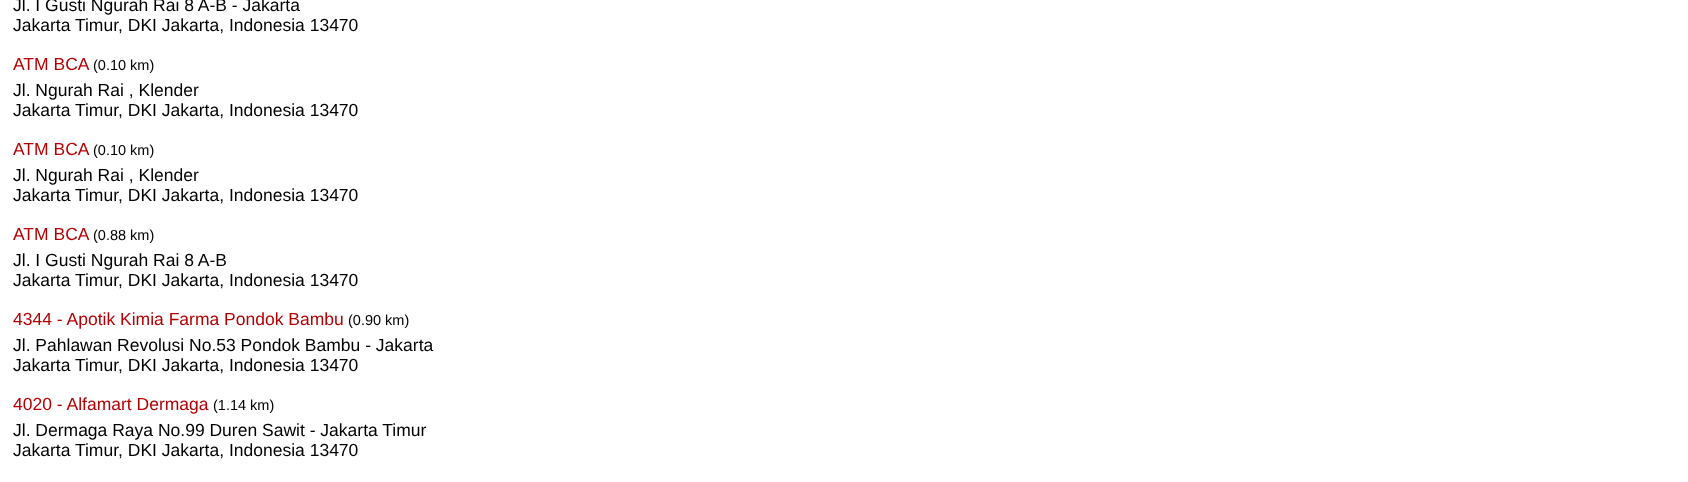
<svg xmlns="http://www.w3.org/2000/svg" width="1688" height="482">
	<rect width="100%" height="100%" fill="#FFFFFF" />
	<g font-family="Liberation Sans" font-size="17.5" fill="#000000">
		<text x="13" y="11">Jl. I Gusti Ngurah Rai 8 A-B - Jakarta</text>
		<text x="13" y="31">Jakarta Timur, DKI Jakarta, Indonesia 13470</text>
	</g>
	<text x="13" y="70" font-family="Liberation Sans" font-size="17.5" fill="#B50003">ATM BCA</text>
	<text x="93" y="70" font-family="Liberation Sans" font-size="14.5" fill="#000000">(0.10 km)</text>
	<g font-family="Liberation Sans" font-size="17.5" fill="#000000">
		<text x="13" y="96">Jl. Ngurah Rai , Klender</text>
		<text x="13" y="116">Jakarta Timur, DKI Jakarta, Indonesia 13470</text>
	</g>
	<text x="13" y="155" font-family="Liberation Sans" font-size="17.5" fill="#B50003">ATM BCA</text>
	<text x="93" y="155" font-family="Liberation Sans" font-size="14.5" fill="#000000">(0.10 km)</text>
	<g font-family="Liberation Sans" font-size="17.5" fill="#000000">
		<text x="13" y="181">Jl. Ngurah Rai , Klender</text>
		<text x="13" y="201">Jakarta Timur, DKI Jakarta, Indonesia 13470</text>
	</g>
	<text x="13" y="240" font-family="Liberation Sans" font-size="17.5" fill="#B50003">ATM BCA</text>
	<text x="93" y="240" font-family="Liberation Sans" font-size="14.5" fill="#000000">(0.88 km)</text>
	<g font-family="Liberation Sans" font-size="17.5" fill="#000000">
		<text x="13" y="266">Jl. I Gusti Ngurah Rai 8 A-B</text>
		<text x="13" y="286">Jakarta Timur, DKI Jakarta, Indonesia 13470</text>
	</g>
	<text x="13" y="325" font-family="Liberation Sans" font-size="17.5" fill="#B50003">4344 - Apotik Kimia Farma Pondok Bambu</text>
	<text x="348" y="325" font-family="Liberation Sans" font-size="14.5" fill="#000000">(0.90 km)</text>
	<g font-family="Liberation Sans" font-size="17.5" fill="#000000">
		<text x="13" y="351">Jl. Pahlawan Revolusi No.53 Pondok Bambu - Jakarta</text>
		<text x="13" y="371">Jakarta Timur, DKI Jakarta, Indonesia 13470</text>
	</g>
	<text x="13" y="410" font-family="Liberation Sans" font-size="17.5" fill="#B50003">4020 - Alfamart Dermaga</text>
	<text x="213" y="410" font-family="Liberation Sans" font-size="14.5" fill="#000000">(1.14 km)</text>
	<g font-family="Liberation Sans" font-size="17.5" fill="#000000">
		<text x="13" y="436">Jl. Dermaga Raya No.99 Duren Sawit - Jakarta Timur</text>
		<text x="13" y="456">Jakarta Timur, DKI Jakarta, Indonesia 13470</text>
	</g>
</svg>
